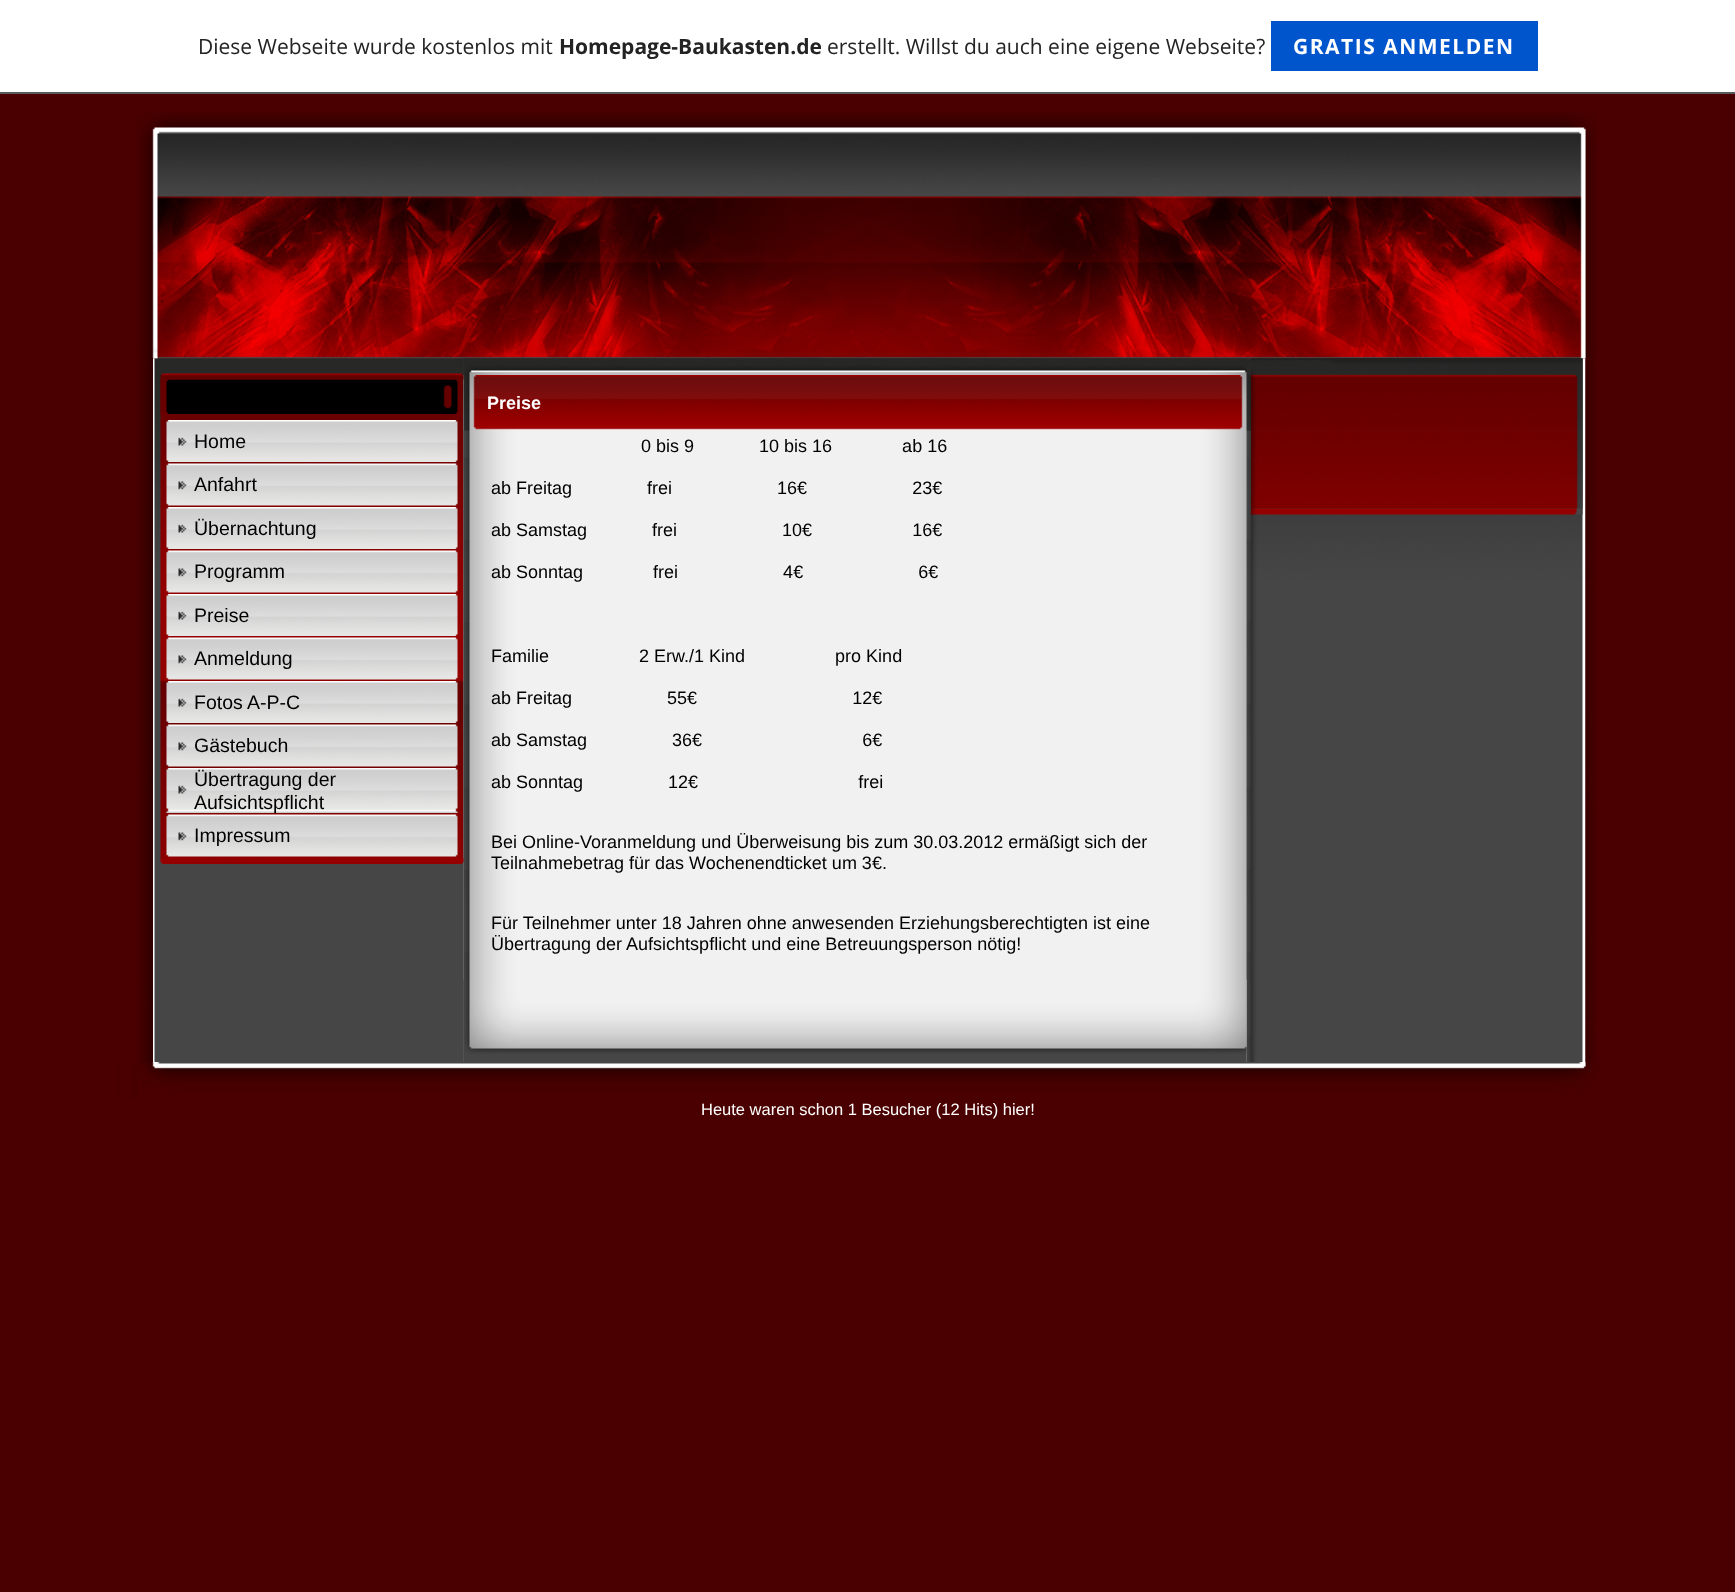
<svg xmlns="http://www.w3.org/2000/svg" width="1735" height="1592">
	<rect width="100%" height="100%" fill="#4A0001" />
	<rect x="0" y="0" width="1735" height="92" fill="#FFFFFF" />
	<rect x="0" y="92" width="1735" height="2" fill="#5A5A5A" />
	<text x="198" y="54" font-family="Open Sans" font-size="21" fill="#232323">Diese Webseite wurde kostenlos mit</text>
	<text x="559" y="54" font-family="Open Sans" font-size="21" font-weight="700" fill="#232323">Homepage-Baukasten.de</text>
	<text x="827" y="54" font-family="Open Sans" font-size="21" fill="#232323">erstellt. Willst du auch eine eigene Webseite?</text>
	<rect x="1271" y="21" width="267" height="50" fill="#0055CC" />
	<text x="1293" y="54" font-family="Open Sans" font-size="21" font-weight="700" letter-spacing="1.5" fill="#FFFFFF">GRATIS ANMELDEN</text>
	<image x="137" y="112" width="1460" height="247" href="assets/img1.png" />
	<image x="138" y="358" width="15" height="704" href="assets/img2.png" />
	<image x="153" y="358" width="1433" height="704" href="assets/img3.png" />
	<image x="154" y="358" width="310" height="704" href="assets/img4.png" />
	<image x="160" y="379" width="304" height="479" href="assets/img6.png" />
	<image x="160" y="379" width="304" height="35" href="assets/img7.png" />
	<image x="463" y="358" width="788" height="500" href="assets/img19.png" />
	<image x="463" y="375" width="788" height="687" href="assets/img21.png" />
	<image x="463" y="375" width="788" height="56" href="assets/img22.png" />
	<image x="160" y="373" width="304" height="7" href="assets/img5.png" />
	<image x="166" y="420" width="292" height="42" href="assets/img8.png" />
	<text x="194" y="448" font-family="Liberation Sans" font-size="19.5" fill="#000000">Home</text>
	<image x="166" y="463" width="292" height="43" href="assets/img9.png" />
	<text x="194" y="491" font-family="Liberation Sans" font-size="19.5" fill="#000000">Anfahrt</text>
	<image x="166" y="507" width="292" height="42" href="assets/img10.png" />
	<text x="194" y="535" font-family="Liberation Sans" font-size="19.5" fill="#000000">Übernachtung</text>
	<image x="166" y="550" width="292" height="43" href="assets/img11.png" />
	<text x="194" y="578" font-family="Liberation Sans" font-size="19.5" fill="#000000">Programm</text>
	<image x="166" y="594" width="292" height="42" href="assets/img12.png" />
	<text x="194" y="622" font-family="Liberation Sans" font-size="19.5" fill="#000000">Preise</text>
	<image x="166" y="637" width="292" height="43" href="assets/img13.png" />
	<text x="194" y="665" font-family="Liberation Sans" font-size="19.5" fill="#000000">Anmeldung</text>
	<image x="166" y="681" width="292" height="42" href="assets/img14.png" />
	<text x="194" y="709" font-family="Liberation Sans" font-size="19.5" fill="#000000">Fotos A-P-C</text>
	<image x="166" y="724" width="292" height="43" href="assets/img15.png" />
	<text x="194" y="752" font-family="Liberation Sans" font-size="19.5" fill="#000000">Gästebuch</text>
	<image x="166" y="768" width="292" height="45" href="assets/img16.png" />
	<g font-family="Liberation Sans" font-size="19.5" fill="#000000">
		<text x="194" y="786">Übertragung der</text>
		<text x="194" y="809">Aufsichtspflicht</text>
	</g>
	<image x="166" y="814" width="292" height="43" href="assets/img17.png" />
	<text x="194" y="842" font-family="Liberation Sans" font-size="19.5" fill="#000000">Impressum</text>
	<image x="160" y="858" width="304" height="6" href="assets/img18.png" />
	<image x="463" y="358" width="784" height="17" href="assets/img20.png" />
	<text x="487" y="409" font-family="Liberation Sans" font-size="18" font-weight="700" fill="#FFFFFF">Preise</text>
	<g font-family="Liberation Sans" font-size="18" fill="#000000">
		<text x="641" y="452" xml:space="preserve">0 bis 9             10 bis 16              ab 16</text>
		<text x="491" y="494" xml:space="preserve">ab Freitag               frei                     16€                     23€</text>
		<text x="491" y="536" xml:space="preserve">ab Samstag             frei                     10€                    16€</text>
		<text x="491" y="578" xml:space="preserve">ab Sonntag              frei                     4€                       6€</text>
		<text x="491" y="662" xml:space="preserve">Familie                  2 Erw./1 Kind                  pro Kind</text>
		<text x="491" y="704" xml:space="preserve">ab Freitag                   55€                               12€</text>
		<text x="491" y="746" xml:space="preserve">ab Samstag                 36€                                6€</text>
		<text x="491" y="788" xml:space="preserve">ab Sonntag                 12€                                frei</text>
		<text x="491" y="848">Bei Online-Voranmeldung und Überweisung bis zum 30.03.2012 ermäßigt sich der</text>
		<text x="491" y="869">Teilnahmebetrag für das Wochenendticket um 3€.</text>
		<text x="491" y="929">Für Teilnehmer unter 18 Jahren ohne anwesenden Erziehungsberechtigten ist eine</text>
		<text x="491" y="950">Übertragung der Aufsichtspflicht und eine Betreuungsperson nötig!</text>
	</g>
	<image x="463" y="979" width="784" height="83" href="assets/img23.png" />
	<image x="1251" y="358" width="332" height="704" href="assets/img24.png" />
	<image x="1251" y="358" width="332" height="157" href="assets/img25.png" />
	<image x="1251" y="358" width="332" height="151" href="assets/img26.png" />
	<image x="1251" y="508" width="330" height="7" href="assets/img27.png" />
	<image x="1585" y="358" width="11" height="704" href="assets/img28.png" />
	<image x="118" y="1062" width="1485" height="38" href="assets/img29.png" />
	<image x="138" y="1062" width="1465" height="38" href="assets/img30.png" />
	<text x="701" y="1115" font-family="Liberation Sans" font-size="16.5" fill="#FFFFFF">Heute waren schon 1 Besucher (12 Hits) hier!</text>
</svg>
